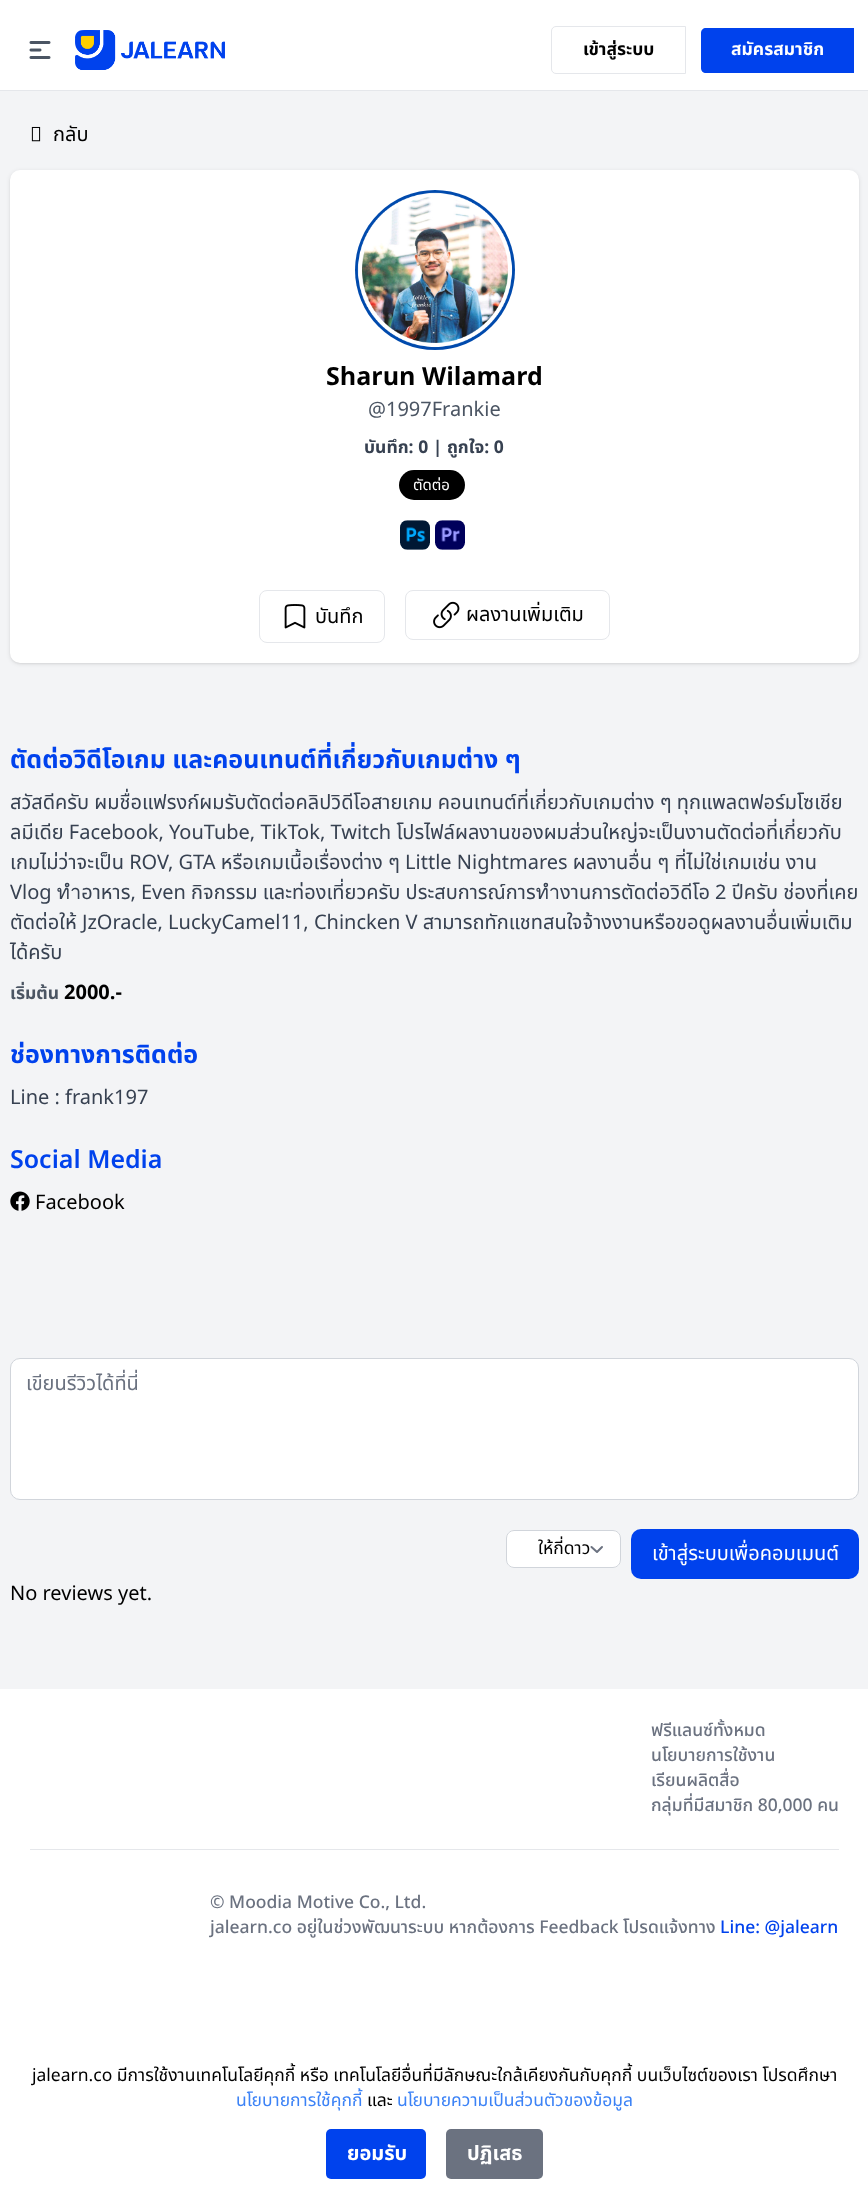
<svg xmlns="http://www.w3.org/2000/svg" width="868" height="2198">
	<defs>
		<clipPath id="clip1"><rect x="538" y="1536" width="52" height="25" /></clipPath>
	</defs>
	<rect width="100%" height="100%" fill="#FFFFFF" />
	<rect x="0" y="90" width="868" height="1" fill="#E5E7EB" />
	<image x="29" y="41" width="22" height="18" href="assets/img1.png" />
	<image x="75" y="30" width="150" height="40" href="assets/img2.png" />
	<path d="M556 26.5H685.5V73.5H556C553.5 73.5 551.5 71.5 551.5 69V31C551.5 28.5 553.5 26.5 556 26.5Z" fill="none" stroke="#E5E7EB" />
	<text x="583" y="55" font-family="Noto Sans Thai" font-size="17.5" font-weight="700" fill="#000000">เข้าสู่ระบบ</text>
	<path d="M706 28H854V73H706C703 73 701 71 701 68V33C701 30 703 28 706 28Z" fill="#0042ED" />
	<text x="731" y="55" font-family="Noto Sans Thai" font-size="17.5" font-weight="700" fill="#FFFFFF">สมัครสมาชิก</text>
	<text x="32" y="2081" font-family="Noto Sans Thai" font-size="17.5" fill="#000000">jalearn.co มีการใช้งานเทคโนโลยีคุกกี้ หรือ เทคโนโลยีอื่นที่มีลักษณะใกล้เคียงกันกับคุกกี้ บนเว็บไซต์ของเรา โปรดศึกษา</text>
	<text x="236" y="2106" font-family="Noto Sans Thai" font-size="17.5" fill="#3B82F6">นโยบายการใช้คุกกี้</text>
	<text x="367" y="2106" font-family="Noto Sans Thai" font-size="17.5" fill="#000000">และ</text>
	<text x="397" y="2106" font-family="Noto Sans Thai" font-size="17.5" fill="#3B82F6">นโยบายความเป็นส่วนตัวของข้อมูล</text>
	<rect x="326" y="2129" width="100" height="50" rx="5" fill="#0042ED" />
	<text x="347" y="2160" font-family="Noto Sans Thai" font-size="20" font-weight="700" fill="#FFFFFF">ยอมรับ</text>
	<rect x="446" y="2129" width="97" height="50" rx="5" fill="#6B7280" />
	<text x="467" y="2160" font-family="Noto Sans Thai" font-size="20" font-weight="700" fill="#FFFFFF">ปฏิเสธ</text>
	<rect x="0" y="91" width="868" height="1598" fill="#F3F4F6" />
	<image x="31" y="126" width="10" height="16" href="assets/img3.png" />
	<text x="53" y="141" font-family="Noto Sans Thai" font-size="20" fill="#000000">กลับ</text>
	<rect x="11" y="173" width="847" height="490" rx="9" fill="#000000" fill-opacity="0.1" filter="blur(1px)" />
	<rect x="10" y="171" width="849" height="493" rx="10" fill="#000000" fill-opacity="0.1" filter="blur(2px)" />
	<rect x="10" y="170" width="849" height="493" rx="10" fill="#FFFFFF" />
	<image x="355" y="190" width="160" height="160" href="assets/img4.png" />
	<text x="326" y="385" font-family="Noto Sans Thai" font-size="25" font-weight="700" fill="#000000">Sharun Wilamard</text>
	<text x="368" y="416" font-family="Noto Sans Thai" font-size="20" fill="#4B5563">@1997Frankie</text>
	<text x="364" y="453" font-family="Noto Sans Thai" font-size="17.5" font-weight="700" fill="#374151">บันทึก: 0 | ถูกใจ: 0</text>
	<rect x="399" y="470" width="66" height="30" rx="15" fill="#000000" />
	<text x="413" y="490" font-family="Noto Sans Thai" font-size="15" fill="#FFFFFF">ตัดต่อ</text>
	<image x="400" y="520" width="30" height="30" href="assets/img5.png" />
	<image x="435" y="520" width="30" height="30" href="assets/img6.png" />
	<rect x="259.5" y="590.5" width="125" height="52" rx="7.5" fill="none" stroke="#E5E7EB" />
	<image x="284" y="604" width="22" height="25" href="assets/img7.png" />
	<text x="315" y="623" font-family="Noto Sans Thai" font-size="20" fill="#000000">บันทึก</text>
	<rect x="405.5" y="590.5" width="204" height="49" rx="7.5" fill="none" stroke="#E5E7EB" />
	<image x="433" y="601" width="27" height="28" href="assets/img8.png" />
	<text x="466" y="621" font-family="Noto Sans Thai" font-size="20" fill="#000000">ผลงานเพิ่มเติม</text>
	<text x="10" y="768" font-family="Noto Sans Thai" font-size="25" font-weight="700" fill="#0042ED">ตัดต่อวิดีโอเกม และคอนเทนต์ที่เกี่ยวกับเกมต่าง ๆ</text>
	<g font-family="Noto Sans Thai" font-size="20" fill="#374151">
		<text x="10" y="809">สวัสดีครับ ผมชื่อแฟรงก์ผมรับตัดต่อคลิปวิดีโอสายเกม คอนเทนต์ที่เกี่ยวกับเกมต่าง ๆ ทุกแพลตฟอร์มโซเชีย</text>
		<text x="10" y="839">ลมีเดีย Facebook, YouTube, TikTok, Twitch โปรไฟล์ผลงานของผมส่วนใหญ่จะเป็นงานตัดต่อที่เกี่ยวกับ</text>
		<text x="10" y="869">เกมไม่ว่าจะเป็น ROV, GTA หรือเกมเนื้อเรื่องต่าง ๆ Little Nightmares ผลงานอื่น ๆ ที่ไม่ใช่เกมเช่น งาน</text>
		<text x="10" y="899">Vlog ทำอาหาร, Even กิจกรรม และท่องเที่ยวครับ ประสบการณ์การทำงานการตัดต่อวิดีโอ 2 ปีครับ ช่องที่เคย</text>
		<text x="10" y="929">ตัดต่อให้ JzOracle, LuckyCamel11, Chincken V สามารถทักแชทสนใจจ้างงานหรือขอดูผลงานอื่นเพิ่มเติม</text>
		<text x="10" y="959">ได้ครับ</text>
	</g>
	<text x="10" y="999" font-family="Noto Sans Thai" font-size="17.5" font-weight="700" fill="#4B5563">เริ่มต้น</text>
	<text x="64" y="999" font-family="Noto Sans Thai" font-size="20" font-weight="700" fill="#000000">2000.-</text>
	<text x="10" y="1063" font-family="Noto Sans Thai" font-size="25" font-weight="700" fill="#0042ED">ช่องทางการติดต่อ</text>
	<text x="10" y="1104" font-family="Noto Sans Thai" font-size="20" fill="#374151">Line : frank197</text>
	<text x="10" y="1168" font-family="Noto Sans Thai" font-size="25" font-weight="600" fill="#0042ED">Social Media</text>
	<image x="10" y="1191" width="20" height="20" href="assets/img9.png" />
	<text x="35" y="1209" font-family="Noto Sans Thai" font-size="20" fill="#000000">Facebook</text>
	<rect x="10.5" y="1358.5" width="848" height="141" rx="9.5" fill="#FFFFFF" stroke="#D1D5DB" />
	<text x="26" y="1390" font-family="Noto Sans Thai" font-size="20" fill="#6B7280">เขียนรีวิวได้ที่นี่</text>
	<rect x="506" y="1530" width="115" height="38" rx="8" fill="#FFFFFF" />
	<path d="M591.5 1547L597 1552L602 1547" fill="none" stroke="#6B7280" stroke-width="2" stroke-linecap="round" stroke-linejoin="round" />
	<rect x="506.5" y="1530.5" width="114" height="37" rx="7.5" fill="none" stroke="#D1D5DB" />
	<g clip-path="url(#clip1)">
		<text x="538" y="1554" font-family="Noto Sans Thai" font-size="17.5" fill="#000000">ให้กี่ดาว</text>
	</g>
	<rect x="631" y="1529" width="228" height="50" rx="10" fill="#0042ED" />
	<text x="652" y="1560" font-family="Noto Sans Thai" font-size="20" fill="#FFFFFF">เข้าสู่ระบบเพื่อคอมเมนต์</text>
	<text x="10" y="1600" font-family="Noto Sans Thai" font-size="20" fill="#000000">No reviews yet.</text>
	<g font-family="Noto Sans Thai" font-size="17.5" font-weight="500" fill="#6B7280">
		<text x="651" y="1736">ฟรีแลนซ์ทั้งหมด</text>
		<text x="651" y="1761">นโยบายการใช้งาน</text>
		<text x="651" y="1786">เรียนผลิตสื่อ</text>
		<text x="651" y="1811">กลุ่มที่มีสมาชิก 80,000 คน</text>
	</g>
	<rect x="30" y="1849" width="809" height="1" fill="#E5E7EB" />
	<g font-family="Noto Sans Thai" font-size="17.5" font-weight="500" fill="#6B7280">
		<text x="210" y="1908">© Moodia Motive Co., Ltd.</text>
		<text x="210" y="1933">jalearn.co อยู่ในช่วงพัฒนาระบบ หากต้องการ Feedback โปรดแจ้งทาง</text>
	</g>
	<text x="720" y="1933" font-family="Noto Sans Thai" font-size="17.5" font-weight="500" fill="#0042ED">Line: @jalearn</text>
</svg>
